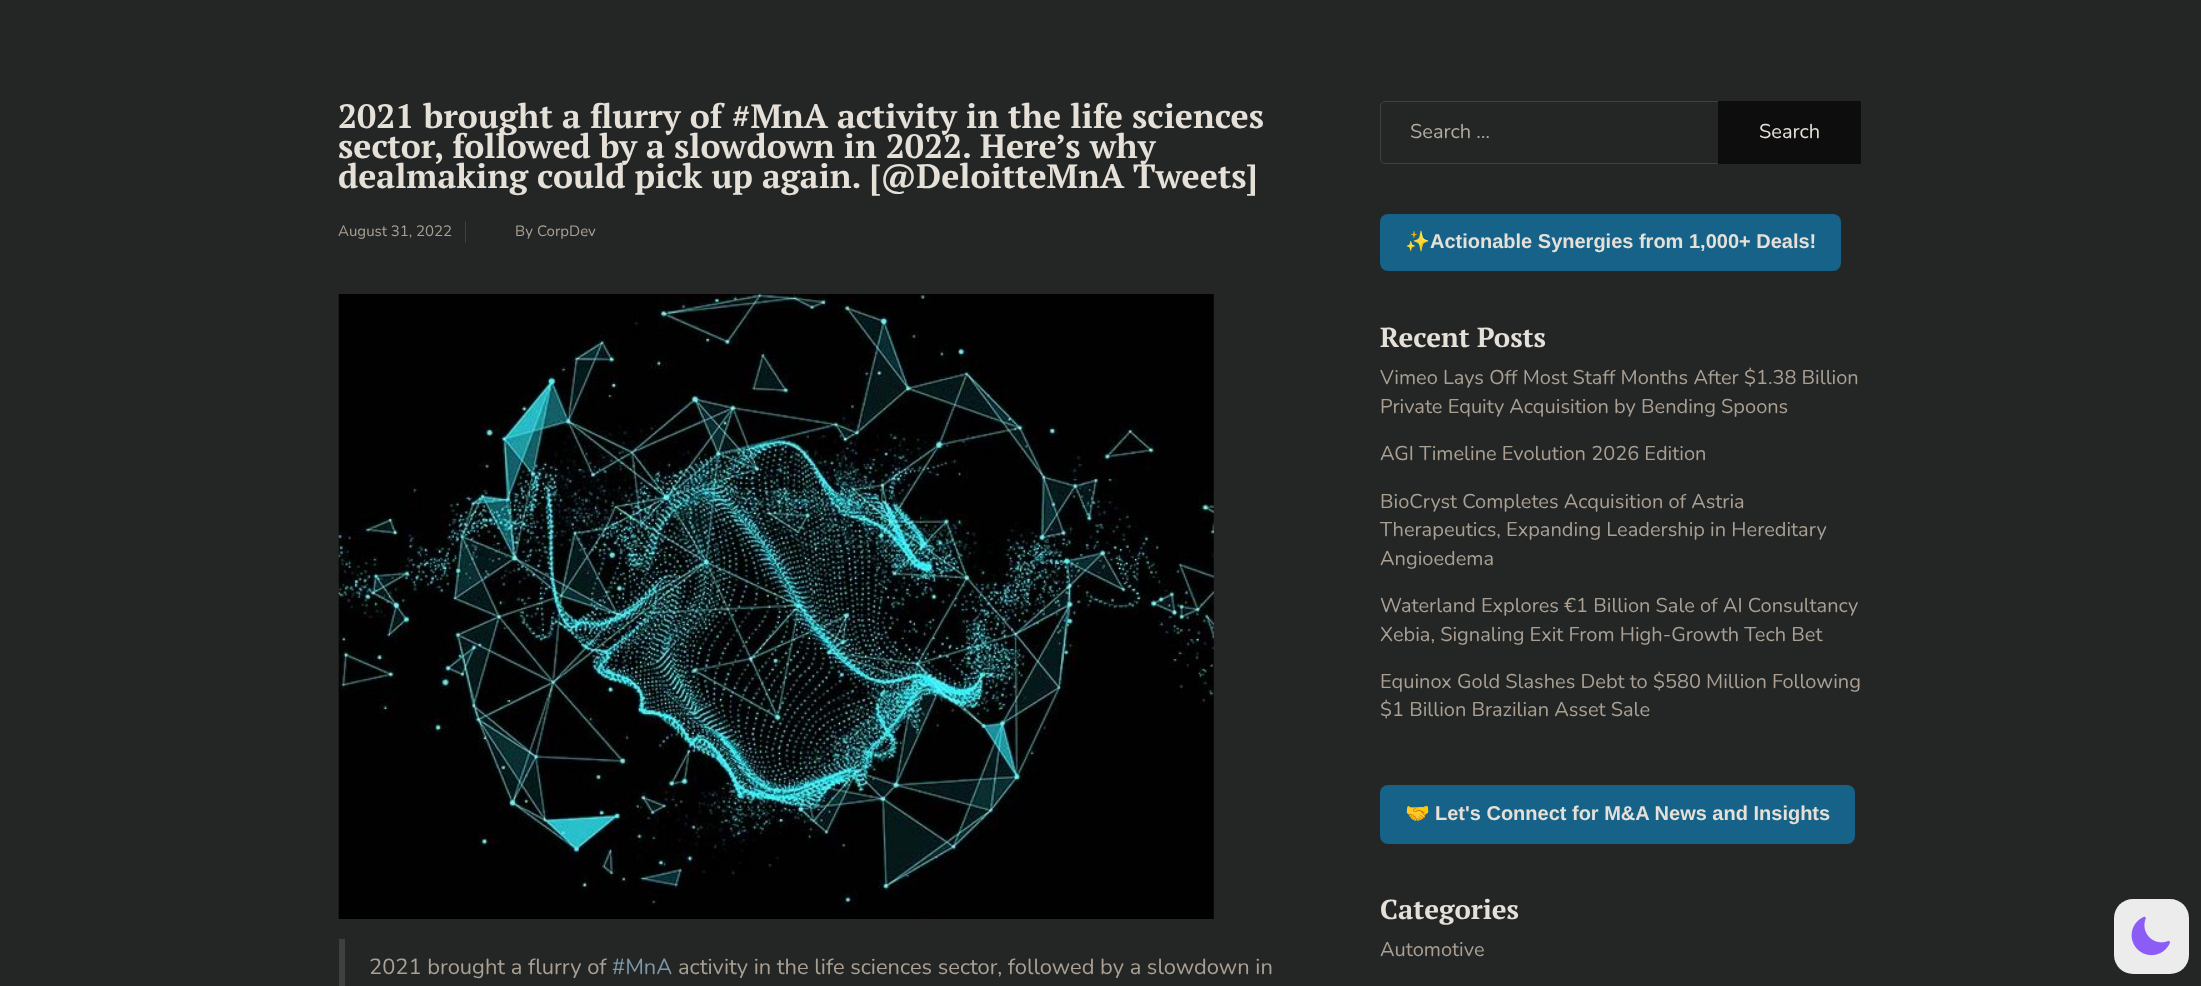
<svg xmlns="http://www.w3.org/2000/svg" width="2201" height="986">
	<rect width="100%" height="100%" fill="#242525" />
	<g font-family="PT Serif" font-size="33.75" font-weight="700" fill="#E5E0D8">
		<text x="338" y="128">2021 brought a flurry of #MnA activity in the life sciences</text>
		<text x="338" y="158">sector, followed by a slowdown in 2022. Here’s why</text>
		<text x="338" y="188">dealmaking could pick up again. [@DeloitteMnA Tweets]</text>
	</g>
	<rect x="465" y="221" width="1" height="22" fill="#3F4141" />
	<g font-family="Nunito" font-size="15" fill="#A9A093">
		<text x="338" y="236">August 31, 2022</text>
		<text x="515" y="236">By</text>
		<text x="537" y="236">CorpDev</text>
	</g>
	<image x="338" y="294" width="876" height="625" href="assets/img1.png" />
	<rect x="339" y="939" width="6" height="47" fill="#3F4141" />
	<text x="369" y="974" font-family="Nunito" font-size="21.9" fill="#A9A093">2021 brought a flurry of</text>
	<text x="612" y="974" font-family="Nunito" font-size="21.9" fill="#7E98A7">#MnA</text>
	<text x="678" y="974" font-family="Nunito" font-size="21.9" fill="#A9A093">activity in the life sciences sector, followed by a slowdown in</text>
	<path d="M1385 101.5H1722.5V163.5H1385C1382.5 163.5 1380.5 161.5 1380.5 159V106C1380.5 103.5 1382.5 101.5 1385 101.5Z" fill="none" stroke="#3F4141" />
	<text x="1410" y="138" font-family="Nunito" font-size="20" fill="#B2AA9E">Search …</text>
	<rect x="1718" y="101" width="143" height="63" fill="#0D0D0D" />
	<text x="1759" y="138" font-family="Nunito" font-size="20" fill="#E5E0D8">Search</text>
	<rect x="1380" y="214" width="461" height="57" rx="8" fill="#166288" />
	<text x="1405" y="248" font-family="Noto Color Emoji" font-size="20" font-weight="700" fill="#E5E0D8">✨</text>
	<text x="1430" y="248" font-family="Liberation Sans" font-size="20" font-weight="700" fill="#E5E0D8">Actionable Synergies from 1,000+ Deals!</text>
	<text x="1380" y="347" font-family="PT Serif" font-size="27.5" font-weight="700" fill="#E5E0D8">Recent Posts</text>
	<g font-family="Nunito" font-size="20" fill="#A9A093">
		<text x="1380" y="384">Vimeo Lays Off Most Staff Months After $1.38 Billion</text>
		<text x="1380" y="413">Private Equity Acquisition by Bending Spoons</text>
		<text x="1380" y="460">AGI Timeline Evolution 2026 Edition</text>
		<text x="1380" y="508">BioCryst Completes Acquisition of Astria</text>
		<text x="1380" y="536">Therapeutics, Expanding Leadership in Hereditary</text>
		<text x="1380" y="565">Angioedema</text>
		<text x="1380" y="612">Waterland Explores €1 Billion Sale of AI Consultancy</text>
		<text x="1380" y="641">Xebia, Signaling Exit From High-Growth Tech Bet</text>
		<text x="1380" y="688">Equinox Gold Slashes Debt to $580 Million Following</text>
		<text x="1380" y="716">$1 Billion Brazilian Asset Sale</text>
	</g>
	<rect x="1380" y="785" width="475" height="59" rx="8" fill="#166288" />
	<text x="1405" y="820" font-family="Noto Color Emoji" font-size="20" font-weight="700" fill="#E5E0D8">🤝</text>
	<text x="1435" y="820" font-family="Liberation Sans" font-size="20" font-weight="700" fill="#E5E0D8">Let's Connect for M&amp;A News and Insights</text>
	<text x="1380" y="919" font-family="PT Serif" font-size="27.5" font-weight="700" fill="#E5E0D8">Categories</text>
	<text x="1380" y="956" font-family="Nunito" font-size="20" fill="#A9A093">Automotive</text>
	<rect x="2114" y="899" width="75" height="75" rx="19" fill="#ECECEC" />
	<image x="2131" y="916" width="39" height="40" href="assets/img2.png" />
</svg>
